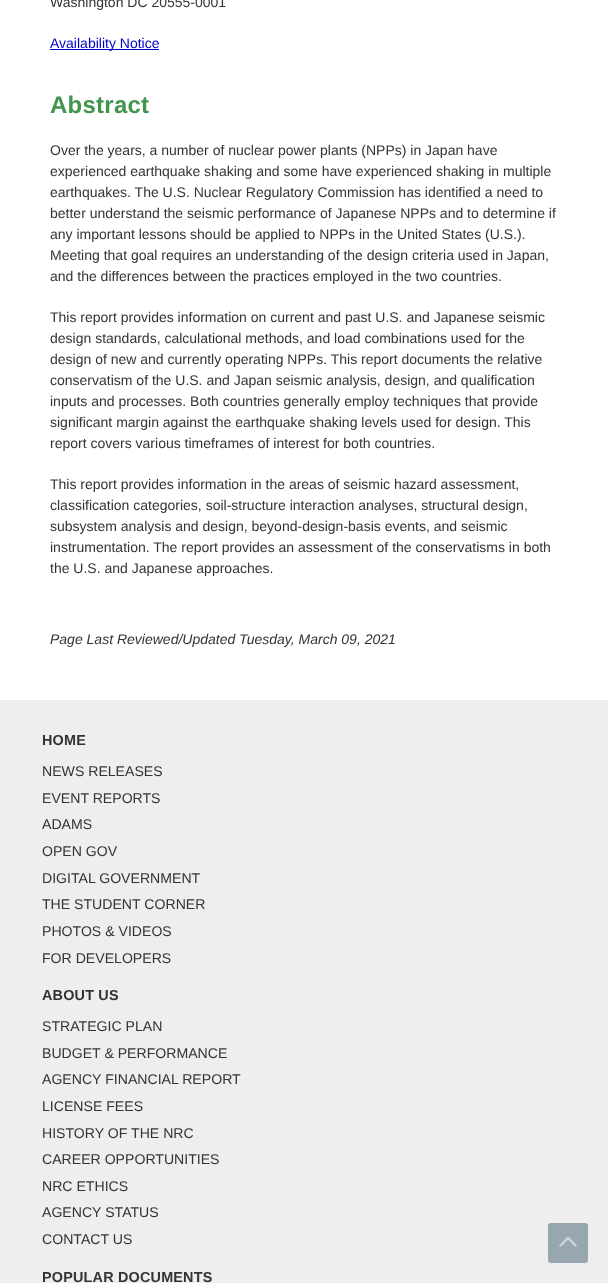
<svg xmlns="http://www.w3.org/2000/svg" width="608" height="1283">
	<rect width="100%" height="100%" fill="#FFFFFF" />
	<text x="50" y="7" font-family="Liberation Sans" font-size="14" fill="#333333">Washington DC 20555-0001</text>
	<rect x="50" y="49" width="109" height="1" fill="#0000CC" />
	<text x="50" y="48" font-family="Liberation Sans" font-size="14" fill="#0000CC">Availability Notice</text>
	<text x="50" y="113" font-family="Liberation Sans" font-size="24" font-weight="700" letter-spacing="0.25" fill="#41954D">Abstract</text>
	<g font-family="Liberation Sans" font-size="14" fill="#333333">
		<text x="50" y="155">Over the years, a number of nuclear power plants (NPPs) in Japan have</text>
		<text x="50" y="176">experienced earthquake shaking and some have experienced shaking in multiple</text>
		<text x="50" y="197">earthquakes. The U.S. Nuclear Regulatory Commission has identified a need to</text>
		<text x="50" y="218">better understand the seismic performance of Japanese NPPs and to determine if</text>
		<text x="50" y="239">any important lessons should be applied to NPPs in the United States (U.S.).</text>
		<text x="50" y="260">Meeting that goal requires an understanding of the design criteria used in Japan,</text>
		<text x="50" y="281">and the differences between the practices employed in the two countries.</text>
		<text x="50" y="322">This report provides information on current and past U.S. and Japanese seismic</text>
		<text x="50" y="343">design standards, calculational methods, and load combinations used for the</text>
		<text x="50" y="364">design of new and currently operating NPPs. This report documents the relative</text>
		<text x="50" y="385">conservatism of the U.S. and Japan seismic analysis, design, and qualification</text>
		<text x="50" y="406">inputs and processes. Both countries generally employ techniques that provide</text>
		<text x="50" y="427">significant margin against the earthquake shaking levels used for design. This</text>
		<text x="50" y="448">report covers various timeframes of interest for both countries.</text>
		<text x="50" y="489">This report provides information in the areas of seismic hazard assessment,</text>
		<text x="50" y="510">classification categories, soil-structure interaction analyses, structural design,</text>
		<text x="50" y="531">subsystem analysis and design, beyond-design-basis events, and seismic</text>
		<text x="50" y="552">instrumentation. The report provides an assessment of the conservatisms in both</text>
		<text x="50" y="573">the U.S. and Japanese approaches.</text>
	</g>
	<text x="50" y="644" font-family="Liberation Sans" font-size="14" font-style="italic" fill="#333333">Page Last Reviewed/Updated Tuesday, March 09, 2021</text>
	<rect x="0" y="700" width="608" height="583" fill="#EEEEEE" />
	<text x="42" y="745" font-family="Liberation Sans" font-size="14.4" font-weight="700" letter-spacing="0.2" fill="#333333">HOME</text>
	<g font-family="Liberation Sans" font-size="14.1" fill="#333333">
		<text x="42" y="776">NEWS RELEASES</text>
		<text x="42" y="803">EVENT REPORTS</text>
		<text x="42" y="829">ADAMS</text>
		<text x="42" y="856">OPEN GOV</text>
		<text x="42" y="883">DIGITAL GOVERNMENT</text>
		<text x="42" y="909">THE STUDENT CORNER</text>
		<text x="42" y="936">PHOTOS &amp; VIDEOS</text>
		<text x="42" y="963">FOR DEVELOPERS</text>
	</g>
	<text x="42" y="1000" font-family="Liberation Sans" font-size="14.4" font-weight="700" letter-spacing="0.2" fill="#333333">ABOUT US</text>
	<g font-family="Liberation Sans" font-size="14.1" fill="#333333">
		<text x="42" y="1031">STRATEGIC PLAN</text>
		<text x="42" y="1058">BUDGET &amp; PERFORMANCE</text>
		<text x="42" y="1084">AGENCY FINANCIAL REPORT</text>
		<text x="42" y="1111">LICENSE FEES</text>
		<text x="42" y="1138">HISTORY OF THE NRC</text>
		<text x="42" y="1164">CAREER OPPORTUNITIES</text>
		<text x="42" y="1191">NRC ETHICS</text>
		<text x="42" y="1217">AGENCY STATUS</text>
		<text x="42" y="1244">CONTACT US</text>
	</g>
	<text x="42" y="1282" font-family="Liberation Sans" font-size="14.4" font-weight="700" letter-spacing="0.2" fill="#333333">POPULAR DOCUMENTS</text>
	<rect x="548" y="1223" width="40" height="40" rx="3" fill="#98A6B0" />
	<image x="559" y="1236" width="18" height="11" href="assets/img1.png" />
</svg>
